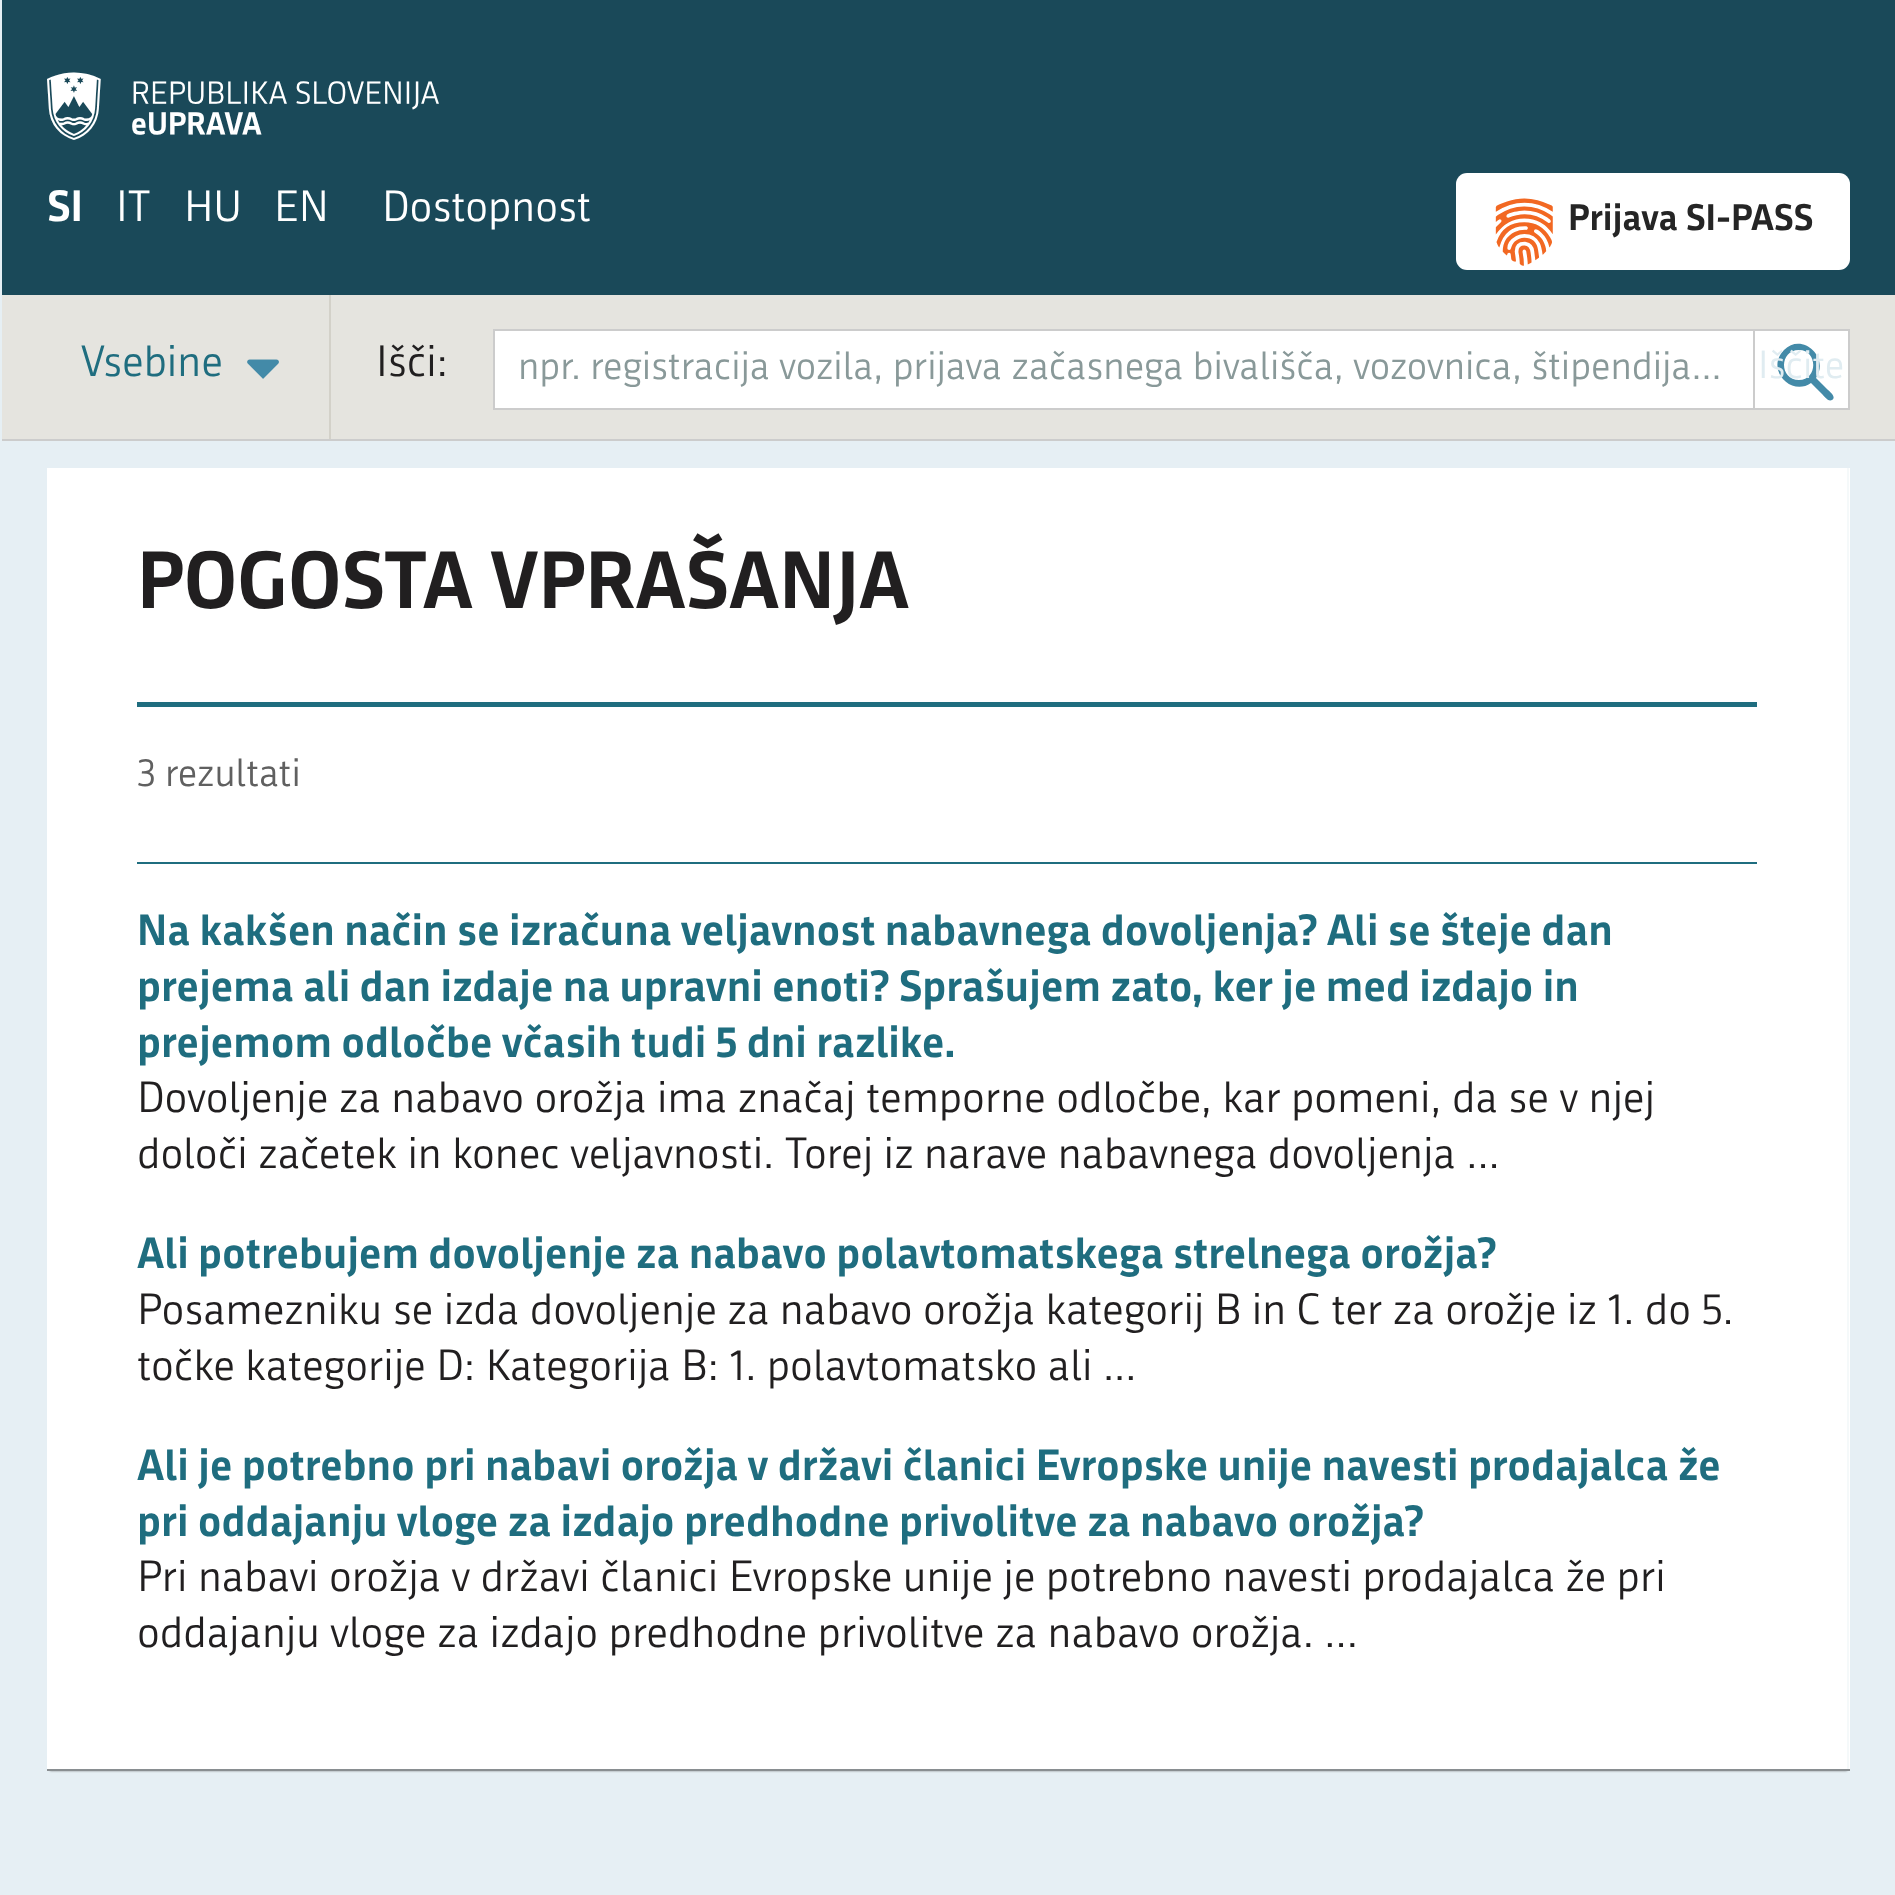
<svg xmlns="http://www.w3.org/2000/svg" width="1895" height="1895">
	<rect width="100%" height="100%" fill="#E6EFF4" />
	<rect x="2" y="0" width="1893" height="295" fill="#1A4959" />
	<text x="47" y="140" font-family="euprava" font-size="67.5" fill="#FFFFFF">1</text>
	<text x="47" y="221" font-family="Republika" font-size="42.75" font-weight="700" fill="#FFFFFF">SI</text>
	<g font-family="Republika" font-size="42.75" fill="#FFFFFF">
		<text x="116" y="221">IT</text>
		<text x="184" y="221">HU</text>
		<text x="274" y="221">EN</text>
		<text x="382" y="221">Dostopnost</text>
	</g>
	<rect x="1456" y="173" width="394" height="97" rx="11" fill="#FFFFFF" />
	<text x="1492" y="266" font-family="euprava" font-size="67.5" fill="#F26822">'</text>
	<text x="1568" y="230" font-family="Republika" font-size="36" font-weight="700" fill="#252525">Prijava SI-PASS</text>
	<rect x="2" y="295" width="1893" height="144" fill="#E5E4DF" />
	<rect x="2" y="439" width="1893" height="2" fill="#CCCCCC" />
	<text x="81" y="376" font-family="Republika" font-size="42.75" fill="#1F6D7F">Vsebine</text>
	<image x="247" y="359" width="32" height="20" href="assets/img1.png" />
	<rect x="329" y="295" width="2" height="144" fill="#D3D1C9" />
	<text x="376" y="376" font-family="Republika" font-size="42.75" fill="#211F20">Išči:</text>
	<rect x="495" y="331" width="1258" height="77" fill="#FFFFFF" />
	<rect x="494" y="330" width="1355" height="79" fill="none" stroke="#CCCCCC" stroke-width="2" />
	<rect x="1754" y="330" width="95" height="79" fill="#FFFFFF" stroke="#CCCCCC" stroke-width="2" />
	<path d="M1799 380C1779 380 1779 350 1799 350C1818 350 1818 380 1799 380ZM1816 378C1830 357 1802 332 1784 350C1765 369 1791 397 1811 383L1822 394C1824 396 1828 402 1832 400C1837 397 1829 391 1827 389Z" fill="#438AA8" />
	<text x="518" y="379" font-family="Republika" font-size="38.25" fill="#899999">npr. registracija vozila, prijava začasnega bivališča, vozovnica, štipendija...</text>
	<text x="1758" y="378" font-family="Republika" font-size="38.25" fill="#E0ECF1">Iščite</text>
	<rect x="50" y="473" width="1797" height="1298" fill="#898E91" filter="blur(1px)" />
	<rect x="47" y="468" width="1803" height="1301" fill="#FFFFFF" />
	<rect x="1847" y="468" width="2" height="1303" fill="#F5F9FA" />
	<rect x="47" y="1769" width="1803" height="2" fill="#898E91" />
	<text x="137" y="608" font-family="Republika" font-size="78.75" font-weight="700" fill="#211F20">POGOSTA VPRAŠANJA</text>
	<rect x="137" y="702" width="1620" height="5" fill="#1F6D7F" />
	<text x="137" y="786" font-family="Republika" font-size="38.25" fill="#606060">3 rezultati</text>
	<rect x="137" y="862" width="1620" height="2" fill="#1F6D7F" />
	<g font-family="Republika" font-size="42.75" font-weight="700" fill="#1F6D7F">
		<text x="137" y="945">Na kakšen način se izračuna veljavnost nabavnega dovoljenja? Ali se šteje dan</text>
		<text x="137" y="1001">prejema ali dan izdaje na upravni enoti? Sprašujem zato, ker je med izdajo in</text>
		<text x="137" y="1057">prejemom odločbe včasih tudi 5 dni razlike.</text>
	</g>
	<g font-family="Republika" font-size="42.75" fill="#211F20">
		<text x="137" y="1112">Dovoljenje za nabavo orožja ima značaj temporne odločbe, kar pomeni, da se v njej</text>
		<text x="137" y="1168">določi začetek in konec veljavnosti. Torej iz narave nabavnega dovoljenja ...</text>
	</g>
	<text x="137" y="1268" font-family="Republika" font-size="42.75" font-weight="700" fill="#1F6D7F">Ali potrebujem dovoljenje za nabavo polavtomatskega strelnega orožja?</text>
	<g font-family="Republika" font-size="42.75" fill="#211F20">
		<text x="137" y="1324">Posamezniku se izda dovoljenje za nabavo orožja kategorij B in C ter za orožje iz 1. do 5.</text>
		<text x="137" y="1380">točke kategorije D: Kategorija B: 1. polavtomatsko ali ...</text>
	</g>
	<g font-family="Republika" font-size="42.75" font-weight="700" fill="#1F6D7F">
		<text x="137" y="1480">Ali je potrebno pri nabavi orožja v državi članici Evropske unije navesti prodajalca že</text>
		<text x="137" y="1536">pri oddajanju vloge za izdajo predhodne privolitve za nabavo orožja?</text>
	</g>
	<g font-family="Republika" font-size="42.75" fill="#211F20">
		<text x="137" y="1591">Pri nabavi orožja v državi članici Evropske unije je potrebno navesti prodajalca že pri</text>
		<text x="137" y="1647">oddajanju vloge za izdajo predhodne privolitve za nabavo orožja. ...</text>
	</g>
</svg>
